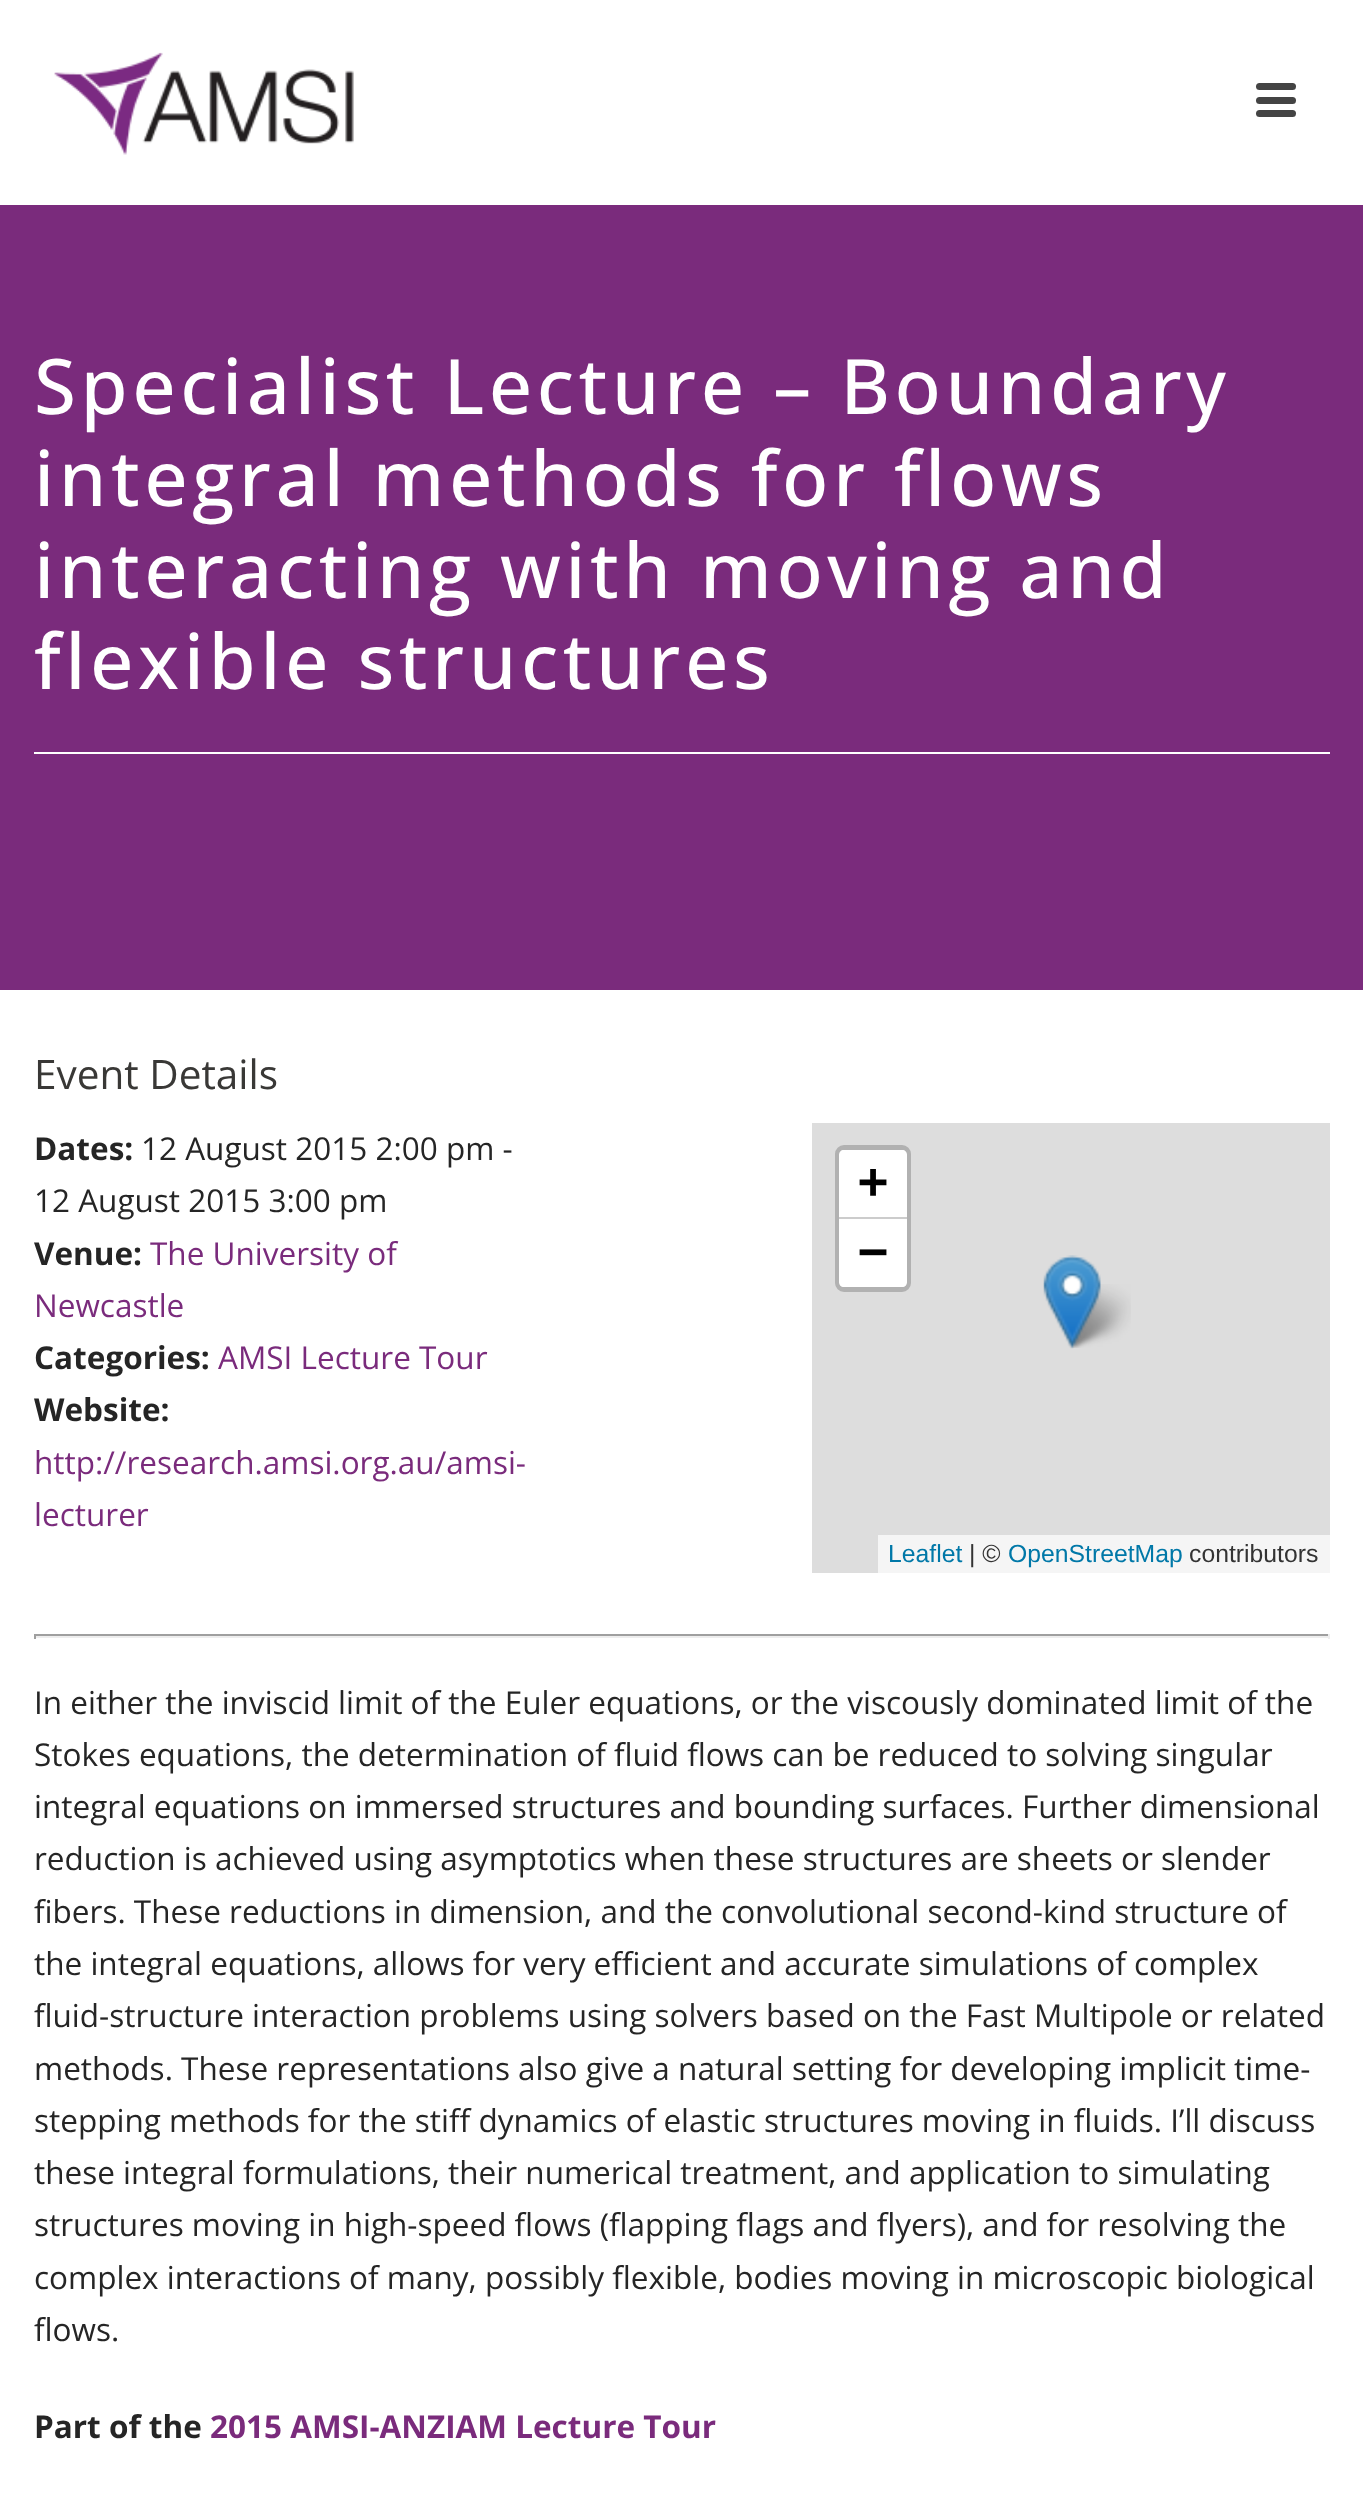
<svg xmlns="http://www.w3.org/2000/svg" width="1363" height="2515">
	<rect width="100%" height="100%" fill="#FFFFFF" />
	<rect x="0" y="205" width="1363" height="785" fill="#7A2B7C" />
	<image x="54" y="52" width="300" height="103" href="assets/img1.png" />
	<rect x="1256" y="83" width="40" height="7" rx="3.5" fill="#444444" />
	<rect x="1256" y="97" width="40" height="7" rx="3.5" fill="#444444" />
	<rect x="1256" y="110" width="40" height="7" rx="3.5" fill="#444444" />
	<rect x="34" y="752" width="1296" height="2" fill="#FFFFFF" />
	<g font-family="Open Sans" font-size="76.5" font-weight="500" letter-spacing="4.5" fill="#FFFFFF">
		<text x="34" y="414">Specialist Lecture – Boundary</text>
		<text x="34" y="506">integral methods for flows</text>
		<text x="34" y="598">interacting with moving and</text>
		<text x="34" y="689">flexible structures</text>
	</g>
	<text x="34" y="1089" font-family="Open Sans" font-size="40.5" fill="#393836">Event Details</text>
	<text x="34" y="1160" font-family="Open Sans" font-size="31.5" font-weight="700" fill="#252525">Dates:</text>
	<g font-family="Open Sans" font-size="31.5" fill="#252525">
		<text x="141" y="1160">12 August 2015 2:00 pm -</text>
		<text x="34" y="1212">12 August 2015 3:00 pm</text>
	</g>
	<text x="34" y="1265" font-family="Open Sans" font-size="31.5" font-weight="700" fill="#252525">Venue:</text>
	<g font-family="Open Sans" font-size="31.5" fill="#7A2B7C">
		<text x="150" y="1265">The University of</text>
		<text x="34" y="1317">Newcastle</text>
	</g>
	<text x="34" y="1369" font-family="Open Sans" font-size="31.5" font-weight="700" fill="#252525">Categories:</text>
	<text x="218" y="1369" font-family="Open Sans" font-size="31.5" fill="#7A2B7C">AMSI Lecture Tour</text>
	<text x="34" y="1421" font-family="Open Sans" font-size="31.5" font-weight="700" fill="#252525">Website:</text>
	<g font-family="Open Sans" font-size="31.5" fill="#7A2B7C">
		<text x="34" y="1474">http://research.amsi.org.au/amsi-</text>
		<text x="34" y="1526">lecturer</text>
	</g>
	<rect x="812" y="1123" width="518" height="450" fill="#DDDDDD" />
	<rect x="837.5" y="1147.5" width="71" height="142" rx="6.5" fill="none" stroke="#B1B1B1" stroke-width="5" />
	<path d="M844 1150H902C905 1150 907 1152 907 1155V1220H839V1155C839 1152 841 1150 844 1150Z" fill="#FFFFFF" />
	<rect x="839" y="1217" width="68" height="2" fill="#CCCCCC" />
	<text x="858" y="1198" font-family="DejaVu Sans Mono" font-size="50" font-weight="700" fill="#000000">+</text>
	<path d="M839 1220H907V1282C907 1285 905 1287 902 1287H844C841 1287 839 1285 839 1282Z" fill="#FFFFFF" />
	<text x="858" y="1268" font-family="DejaVu Sans Mono" font-size="50" font-weight="700" fill="#000000">−</text>
	<rect x="878" y="1535" width="452" height="38" fill="#F5F5F5" />
	<text x="888" y="1562" font-family="Liberation Sans" font-size="24.75" fill="#0078A8">Leaflet</text>
	<text x="969" y="1562" font-family="Liberation Sans" font-size="24.75" fill="#333333">| ©</text>
	<text x="1008" y="1562" font-family="Liberation Sans" font-size="24.75" fill="#0078A8">OpenStreetMap</text>
	<text x="1189" y="1562" font-family="Liberation Sans" font-size="24.75" fill="#333333">contributors</text>
	<image x="1064" y="1284" width="67" height="64" href="assets/img3.png" />
	<image x="1043" y="1255" width="58" height="94" href="assets/img2.png" />
	<rect x="34" y="1634" width="1296" height="2" fill="#9F9F9F" />
	<rect x="1328" y="1634" width="2" height="5" fill="#EEEEEE" />
	<rect x="34" y="1636" width="1296" height="2" fill="#EEEEEE" />
	<rect x="34" y="1634" width="2" height="5" fill="#9F9F9F" />
	<g font-family="Open Sans" font-size="31.5" fill="#252525">
		<text x="34" y="1714">In either the inviscid limit of the Euler equations, or the viscously dominated limit of the</text>
		<text x="34" y="1766">Stokes equations, the determination of fluid flows can be reduced to solving singular</text>
		<text x="34" y="1818">integral equations on immersed structures and bounding surfaces. Further dimensional</text>
		<text x="34" y="1870">reduction is achieved using asymptotics when these structures are sheets or slender</text>
		<text x="34" y="1923">fibers. These reductions in dimension, and the convolutional second-kind structure of</text>
		<text x="34" y="1975">the integral equations, allows for very efficient and accurate simulations of complex</text>
		<text x="34" y="2027">fluid-structure interaction problems using solvers based on the Fast Multipole or related</text>
		<text x="34" y="2080">methods. These representations also give a natural setting for developing implicit time-</text>
		<text x="34" y="2132">stepping methods for the stiff dynamics of elastic structures moving in fluids. I’ll discuss</text>
		<text x="34" y="2184">these integral formulations, their numerical treatment, and application to simulating</text>
		<text x="34" y="2236">structures moving in high-speed flows (flapping flags and flyers), and for resolving the</text>
		<text x="34" y="2289">complex interactions of many, possibly flexible, bodies moving in microscopic biological</text>
		<text x="34" y="2341">flows.</text>
	</g>
	<text x="34" y="2438" font-family="Open Sans" font-size="31.5" font-weight="700" fill="#252525">Part of the</text>
	<text x="210" y="2438" font-family="Open Sans" font-size="31.5" font-weight="700" fill="#7A2B7C">2015 AMSI-ANZIAM Lecture Tour</text>
</svg>
